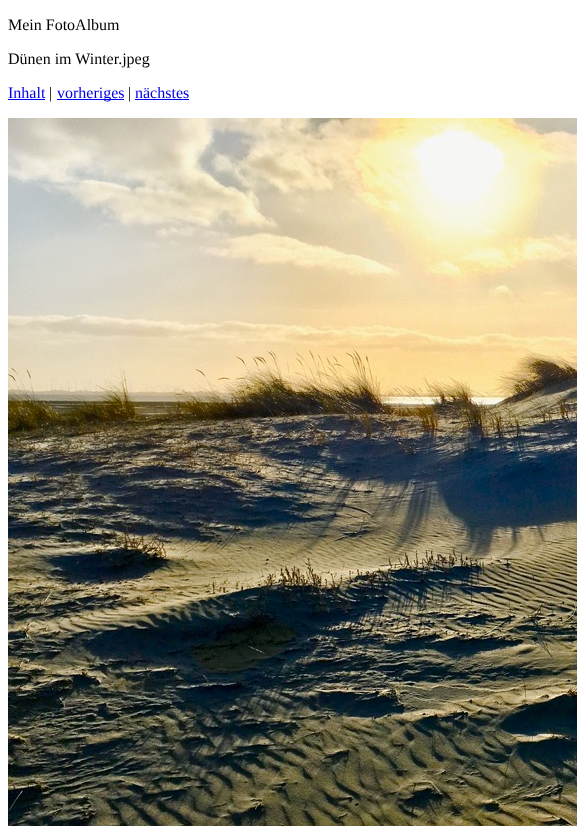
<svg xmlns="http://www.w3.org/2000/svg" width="577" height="826">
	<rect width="100%" height="100%" fill="#FFFFFF" />
	<g font-family="Liberation Serif" font-size="16" fill="#000000">
		<text x="8" y="30">Mein FotoAlbum</text>
		<text x="8" y="64">Dünen im Winter.jpeg</text>
	</g>
	<text x="8" y="98" font-family="Liberation Serif" font-size="16" fill="#0000EE">Inhalt</text>
	<rect x="8" y="99" width="37" height="1" fill="#0000EE" />
	<text x="49" y="98" font-family="Liberation Serif" font-size="16" fill="#000000">|</text>
	<rect x="57" y="99" width="67" height="1" fill="#0000EE" />
	<text x="57" y="98" font-family="Liberation Serif" font-size="16" fill="#0000EE">vorheriges</text>
	<text x="128" y="98" font-family="Liberation Serif" font-size="16" fill="#000000">|</text>
	<text x="135" y="98" font-family="Liberation Serif" font-size="16" fill="#0000EE">nächstes</text>
	<rect x="135" y="99" width="54" height="1" fill="#0000EE" />
	<image x="8" y="118" width="569" height="708" href="assets/img1.png" />
</svg>
